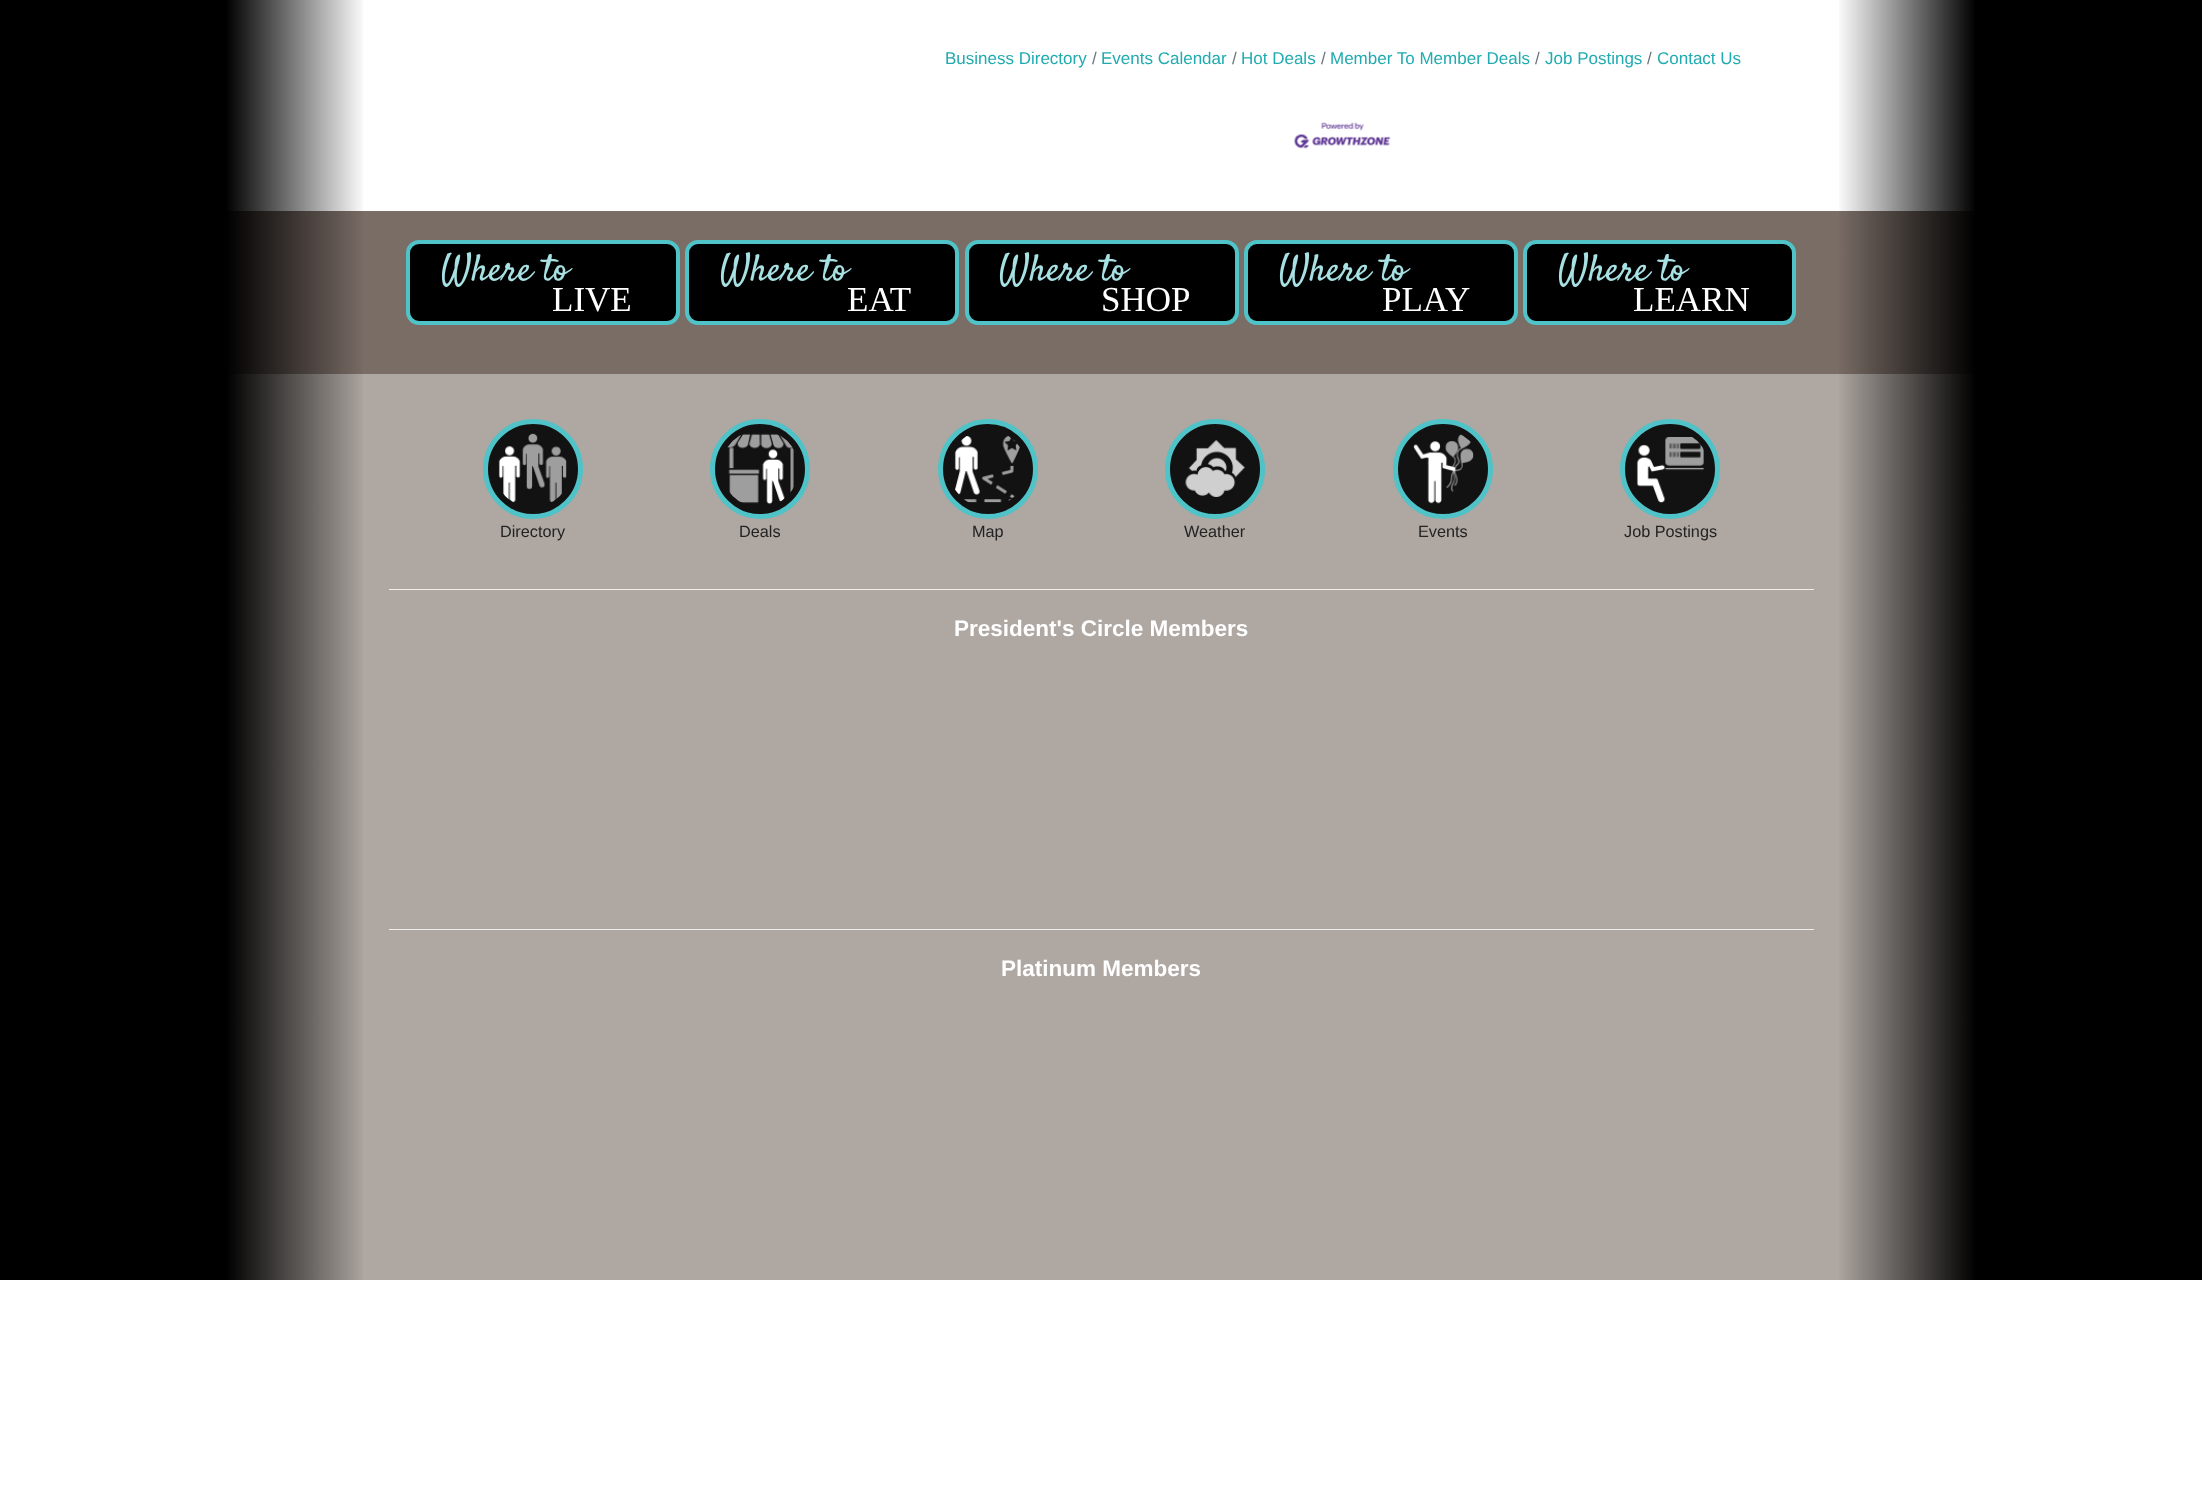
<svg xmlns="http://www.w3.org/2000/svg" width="2202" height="1506">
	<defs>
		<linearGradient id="g1" gradientUnits="userSpaceOnUse" x1="226" y1="468" x2="366" y2="468"><stop offset="0" stop-color="#000000" /><stop offset="1" stop-color="#000000" stop-opacity="0" /></linearGradient>
		<linearGradient id="g2" gradientUnits="userSpaceOnUse" x1="1836" y1="468" x2="1976" y2="468"><stop offset="0" stop-color="#000000" stop-opacity="0" /><stop offset="1" stop-color="#000000" /></linearGradient>
	</defs>
	<rect width="100%" height="100%" fill="#000000" />
	<rect x="227" y="0" width="1748" height="211" fill="#FFFFFF" />
	<rect x="227" y="211" width="1748" height="163" fill="#7A6D66" />
	<rect x="227" y="374" width="1748" height="906" fill="#AEA7A2" />
	<rect x="227" y="0" width="136" height="1280" fill="url(#g1)" />
	<text x="945" y="64" font-family="Liberation Sans" font-size="17" fill="#21ABB0">Business Directory</text>
	<text x="1092" y="64" font-family="Liberation Sans" font-size="17" fill="#6C757D">/</text>
	<text x="1101" y="64" font-family="Liberation Sans" font-size="17" fill="#21ABB0">Events Calendar</text>
	<text x="1232" y="64" font-family="Liberation Sans" font-size="17" fill="#6C757D">/</text>
	<text x="1241" y="64" font-family="Liberation Sans" font-size="17" fill="#21ABB0">Hot Deals</text>
	<text x="1321" y="64" font-family="Liberation Sans" font-size="17" fill="#6C757D">/</text>
	<text x="1330" y="64" font-family="Liberation Sans" font-size="17" fill="#21ABB0">Member To Member Deals</text>
	<text x="1535" y="64" font-family="Liberation Sans" font-size="17" fill="#6C757D">/</text>
	<text x="1545" y="64" font-family="Liberation Sans" font-size="17" fill="#21ABB0">Job Postings</text>
	<text x="1647" y="64" font-family="Liberation Sans" font-size="17" fill="#6C757D">/</text>
	<text x="1657" y="64" font-family="Liberation Sans" font-size="17" fill="#21ABB0">Contact Us</text>
	<image x="1294" y="122" width="97" height="27" href="assets/img1.png" />
	<rect x="1839" y="0" width="136" height="1280" fill="url(#g2)" />
	<rect x="408" y="242" width="270" height="81" rx="11" fill="#000000" stroke="#4FC3C7" stroke-width="4" />
	<text x="441" y="280" font-family="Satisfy" font-size="37.5" fill="#A7E1E3">Where to</text>
	<text x="552" y="311" font-family="Liberation Serif" font-size="35" fill="#FFFFFF">LIVE</text>
	<rect x="687" y="242" width="270" height="81" rx="11" fill="#000000" stroke="#4FC3C7" stroke-width="4" />
	<text x="720" y="280" font-family="Satisfy" font-size="37.5" fill="#A7E1E3">Where to</text>
	<text x="847" y="311" font-family="Liberation Serif" font-size="35" fill="#FFFFFF">EAT</text>
	<rect x="967" y="242" width="270" height="81" rx="11" fill="#000000" stroke="#4FC3C7" stroke-width="4" />
	<text x="999" y="280" font-family="Satisfy" font-size="37.5" fill="#A7E1E3">Where to</text>
	<text x="1101" y="311" font-family="Liberation Serif" font-size="35" fill="#FFFFFF">SHOP</text>
	<rect x="1246" y="242" width="270" height="81" rx="11" fill="#000000" stroke="#4FC3C7" stroke-width="4" />
	<text x="1279" y="280" font-family="Satisfy" font-size="37.5" fill="#A7E1E3">Where to</text>
	<text x="1382" y="311" font-family="Liberation Serif" font-size="35" fill="#FFFFFF">PLAY</text>
	<rect x="1525" y="242" width="269" height="81" rx="11" fill="#000000" stroke="#4FC3C7" stroke-width="4" />
	<text x="1558" y="280" font-family="Satisfy" font-size="37.5" fill="#A7E1E3">Where to</text>
	<text x="1633" y="311" font-family="Liberation Serif" font-size="35" fill="#FFFFFF">LEARN</text>
	<circle cx="533" cy="469" r="47.5" fill="#131212" stroke="#4FC3C7" stroke-width="5" />
	<image x="498" y="433" width="69" height="70" href="assets/img2.png" />
	<text x="500" y="537" font-family="Liberation Sans" font-size="16.25" fill="#232323">Directory</text>
	<circle cx="760" cy="469" r="47.5" fill="#131212" stroke="#4FC3C7" stroke-width="5" />
	<image x="727" y="433" width="67" height="72" href="assets/img3.png" />
	<text x="739" y="537" font-family="Liberation Sans" font-size="16.25" fill="#232323">Deals</text>
	<circle cx="988" cy="469" r="47.5" fill="#131212" stroke="#4FC3C7" stroke-width="5" />
	<image x="954" y="435" width="66" height="68" href="assets/img4.png" />
	<text x="972" y="537" font-family="Liberation Sans" font-size="16.25" fill="#232323">Map</text>
	<circle cx="1215" cy="469" r="47.5" fill="#131212" stroke="#4FC3C7" stroke-width="5" />
	<image x="1185" y="440" width="60" height="57" href="assets/img5.png" />
	<text x="1184" y="537" font-family="Liberation Sans" font-size="16.25" fill="#232323">Weather</text>
	<circle cx="1443" cy="469" r="47.5" fill="#131212" stroke="#4FC3C7" stroke-width="5" />
	<image x="1413" y="434" width="61" height="70" href="assets/img6.png" />
	<text x="1418" y="537" font-family="Liberation Sans" font-size="16.25" fill="#232323">Events</text>
	<circle cx="1670" cy="469" r="47.5" fill="#131212" stroke="#4FC3C7" stroke-width="5" />
	<image x="1636" y="437" width="68" height="67" href="assets/img7.png" />
	<text x="1624" y="537" font-family="Liberation Sans" font-size="16.25" fill="#232323">Job Postings</text>
	<rect x="389" y="589" width="1425" height="1" fill="#EEEEEE" />
	<text x="954" y="636" font-family="Liberation Sans" font-size="22.5" font-weight="700" fill="#FFFFFF">President's Circle Members</text>
	<rect x="389" y="929" width="1425" height="1" fill="#EEEEEE" />
	<text x="1001" y="976" font-family="Liberation Sans" font-size="22.5" font-weight="700" fill="#FFFFFF">Platinum Members</text>
	<rect x="0" y="1280" width="2202" height="226" fill="#FFFFFF" />
</svg>
